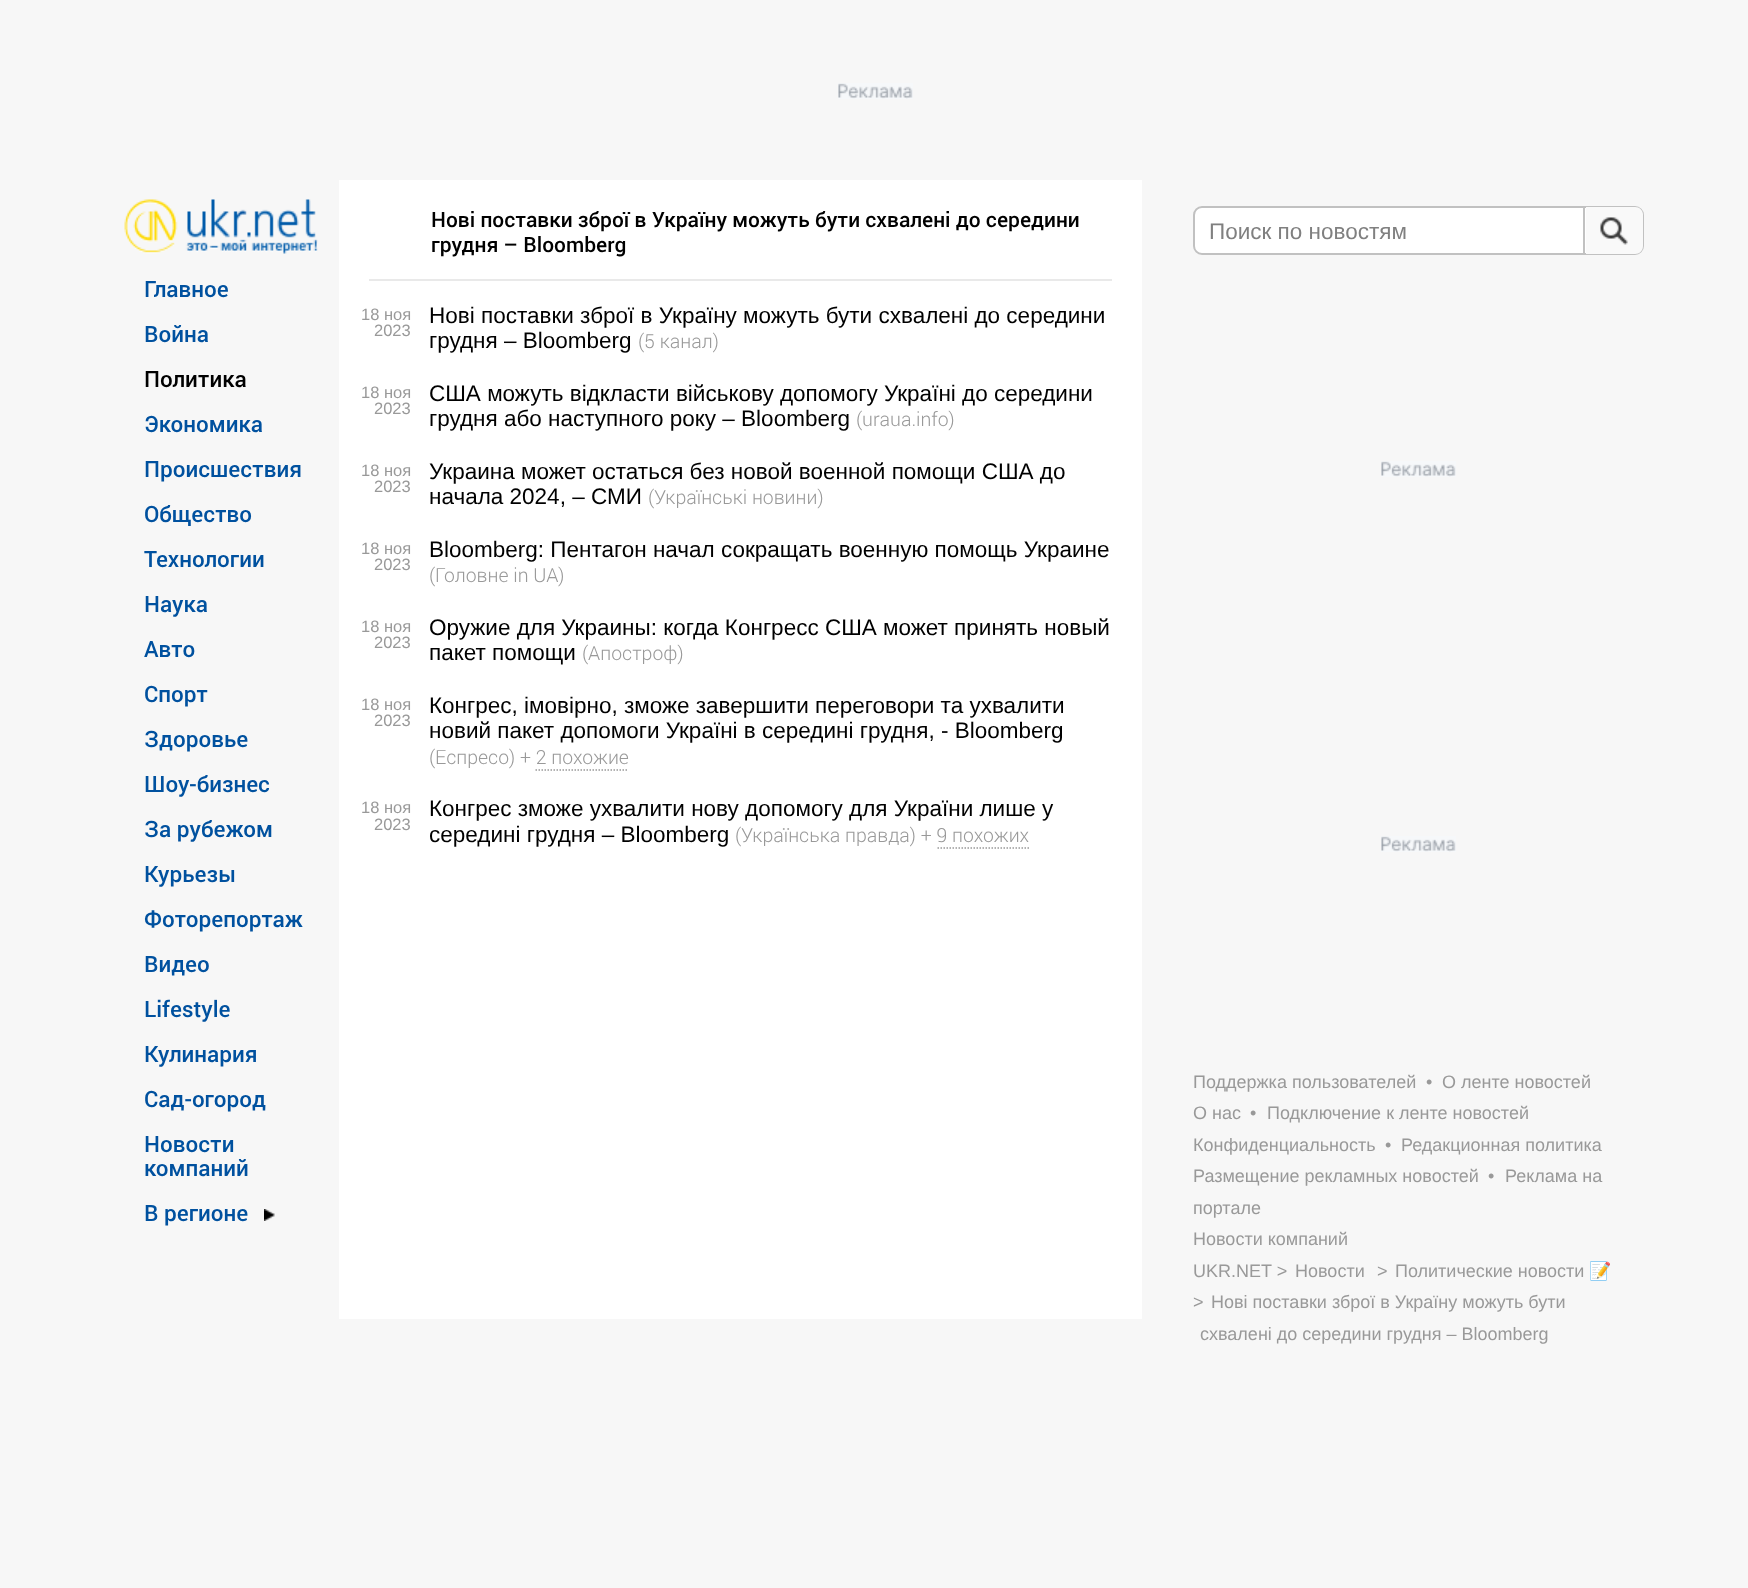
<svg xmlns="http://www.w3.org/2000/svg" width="1748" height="1588">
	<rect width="100%" height="100%" fill="#F7F7F7" />
	<image x="838" y="83" width="75" height="16" href="assets/img1.png" />
	<image x="124" y="199" width="194" height="55" href="assets/img2.png" />
	<g font-family="Roboto" font-size="22.5" font-weight="500" fill="#00519F">
		<text x="144" y="297">Главное</text>
		<text x="144" y="342">Война</text>
	</g>
	<text x="144" y="387" font-family="Roboto" font-size="22.5" font-weight="500" fill="#000000">Политика</text>
	<g font-family="Roboto" font-size="22.5" font-weight="500" fill="#00519F">
		<text x="144" y="432">Экономика</text>
		<text x="144" y="477">Происшествия</text>
		<text x="144" y="522">Общество</text>
		<text x="144" y="567">Технологии</text>
		<text x="144" y="612">Наука</text>
		<text x="144" y="657">Авто</text>
		<text x="144" y="702">Спорт</text>
		<text x="144" y="747">Здоровье</text>
		<text x="144" y="792">Шоу-бизнес</text>
		<text x="144" y="837">За рубежом</text>
		<text x="144" y="882">Курьезы</text>
		<text x="144" y="927">Фоторепортаж</text>
		<text x="144" y="972">Видео</text>
		<text x="144" y="1017">Lifestyle</text>
		<text x="144" y="1062">Кулинария</text>
		<text x="144" y="1107">Сад-огород</text>
		<text x="144" y="1152">Новости</text>
		<text x="144" y="1176">компаний</text>
		<text x="144" y="1221">В регионе</text>
	</g>
	<image x="264" y="1209" width="11" height="12" href="assets/img3.png" />
	<rect x="339" y="180" width="803" height="1139" fill="#FFFFFF" />
	<rect x="369" y="279" width="743" height="2" fill="#E9E9E9" />
	<g font-family="Roboto" font-size="21" font-weight="500" fill="#000000">
		<text x="431" y="227">Нові поставки зброї в Україну можуть бути схвалені до середини</text>
		<text x="431" y="252">грудня – Bloomberg</text>
	</g>
	<g font-family="Liberation Sans" font-size="16.5" fill="#999999">
		<text x="361" y="320">18 ноя</text>
		<text x="374" y="336">2023</text>
	</g>
	<g font-family="Liberation Sans" font-size="22.5" fill="#000000">
		<text x="429" y="323">Нові поставки зброї в Україну можуть бути схвалені до середини</text>
		<text x="429" y="348">грудня – Bloomberg</text>
	</g>
	<text x="638" y="348" font-family="Roboto" font-size="19.5" font-weight="300" fill="#999999">(5 канал)</text>
	<g font-family="Liberation Sans" font-size="16.5" fill="#999999">
		<text x="361" y="398">18 ноя</text>
		<text x="374" y="414">2023</text>
	</g>
	<g font-family="Liberation Sans" font-size="22.5" fill="#000000">
		<text x="429" y="401">США можуть відкласти військову допомогу Україні до середини</text>
		<text x="429" y="426">грудня або наступного року – Bloomberg</text>
	</g>
	<text x="856" y="426" font-family="Roboto" font-size="19.5" font-weight="300" fill="#999999">(uraua.info)</text>
	<g font-family="Liberation Sans" font-size="16.5" fill="#999999">
		<text x="361" y="476">18 ноя</text>
		<text x="374" y="492">2023</text>
	</g>
	<g font-family="Liberation Sans" font-size="22.5" fill="#000000">
		<text x="429" y="479">Украина может остаться без новой военной помощи США до</text>
		<text x="429" y="504">начала 2024, – СМИ</text>
	</g>
	<text x="648" y="504" font-family="Roboto" font-size="19.5" font-weight="300" fill="#999999">(Українські новини)</text>
	<g font-family="Liberation Sans" font-size="16.5" fill="#999999">
		<text x="361" y="554">18 ноя</text>
		<text x="374" y="570">2023</text>
	</g>
	<text x="429" y="557" font-family="Liberation Sans" font-size="22.5" fill="#000000">Bloomberg: Пентагон начал сокращать военную помощь Украине</text>
	<text x="429" y="582" font-family="Roboto" font-size="19.5" font-weight="300" fill="#999999">(Головне in UA)</text>
	<g font-family="Liberation Sans" font-size="16.5" fill="#999999">
		<text x="361" y="632">18 ноя</text>
		<text x="374" y="648">2023</text>
	</g>
	<g font-family="Liberation Sans" font-size="22.5" fill="#000000">
		<text x="429" y="635">Оружие для Украины: когда Конгресс США может принять новый</text>
		<text x="429" y="660">пакет помощи</text>
	</g>
	<text x="582" y="660" font-family="Roboto" font-size="19.5" font-weight="300" fill="#999999">(Апостроф)</text>
	<g font-family="Liberation Sans" font-size="16.5" fill="#999999">
		<text x="361" y="710">18 ноя</text>
		<text x="374" y="726">2023</text>
	</g>
	<g font-family="Liberation Sans" font-size="22.5" fill="#000000">
		<text x="429" y="713">Конгрес, імовірно, зможе завершити переговори та ухвалити</text>
		<text x="429" y="738">новий пакет допомоги Україні в середині грудня, - Bloomberg</text>
	</g>
	<text x="429" y="764" font-family="Roboto" font-size="19.5" font-weight="300" fill="#999999">(Еспресо) + 2 похожие</text>
	<path d="M535.5 770H628.5" fill="none" stroke="#999999" stroke-width="1.5" stroke-dasharray="1.5 1.5" />
	<g font-family="Liberation Sans" font-size="16.5" fill="#999999">
		<text x="361" y="813">18 ноя</text>
		<text x="374" y="830">2023</text>
	</g>
	<g font-family="Liberation Sans" font-size="22.5" fill="#000000">
		<text x="429" y="816">Конгрес зможе ухвалити нову допомогу для України лише у</text>
		<text x="429" y="842">середині грудня – Bloomberg</text>
	</g>
	<text x="735" y="842" font-family="Roboto" font-size="19.5" font-weight="300" fill="#999999">(Українська правда) + 9 похожих</text>
	<path d="M937.5 848H1029" fill="none" stroke="#999999" stroke-width="1.5" stroke-dasharray="1.5 1.5" />
	<rect x="1194" y="207" width="449" height="47" rx="8" fill="#FFFFFF" stroke="#C1C1C1" stroke-width="2" />
	<rect x="1583" y="207" width="2" height="47" fill="#C1C1C1" />
	<text x="1209" y="239" font-family="Liberation Sans" font-size="22.5" fill="#808080">Поиск по новостям</text>
	<path d="M1586 207H1635C1639.5 207 1643 210.5 1643 215V246C1643 250.5 1639.5 254 1635 254H1586Z" fill="#F9F9F9" />
	<image x="1600" y="217" width="28" height="28" href="assets/img4.png" />
	<image x="1381" y="461" width="75" height="16" href="assets/img1.png" />
	<image x="1381" y="836" width="75" height="16" href="assets/img1.png" />
	<g font-family="Liberation Sans" font-size="18" fill="#999999">
		<text x="1193" y="1088">Поддержка пользователей</text>
		<text x="1426" y="1088">•</text>
		<text x="1442" y="1088">О ленте новостей</text>
		<text x="1193" y="1119">О нас</text>
		<text x="1250" y="1119">•</text>
		<text x="1267" y="1119">Подключение к ленте новостей</text>
		<text x="1193" y="1151">Конфиденциальность</text>
		<text x="1385" y="1151">•</text>
		<text x="1401" y="1151">Редакционная политика</text>
		<text x="1193" y="1182">Размещение рекламных новостей</text>
		<text x="1488" y="1182">•</text>
		<text x="1505" y="1182">Реклама на</text>
		<text x="1193" y="1214">портале</text>
		<text x="1193" y="1245">Новости компаний</text>
		<text x="1295" y="1277">Новости</text>
		<text x="1377" y="1277">&gt;</text>
		<text x="1395" y="1277">Политические новости</text>
	</g>
	<text x="1589" y="1277" font-family="Noto Color Emoji" font-size="18" fill="#999999">📝</text>
	<g font-family="Liberation Sans" font-size="18" fill="#999999">
		<text x="1193" y="1308">&gt;</text>
		<text x="1211" y="1308">Нові поставки зброї в Україну можуть бути</text>
		<text x="1200" y="1340">схвалені до середини грудня – Bloomberg</text>
		<text x="1193" y="1277">UKR.NET &gt;</text>
	</g>
</svg>
